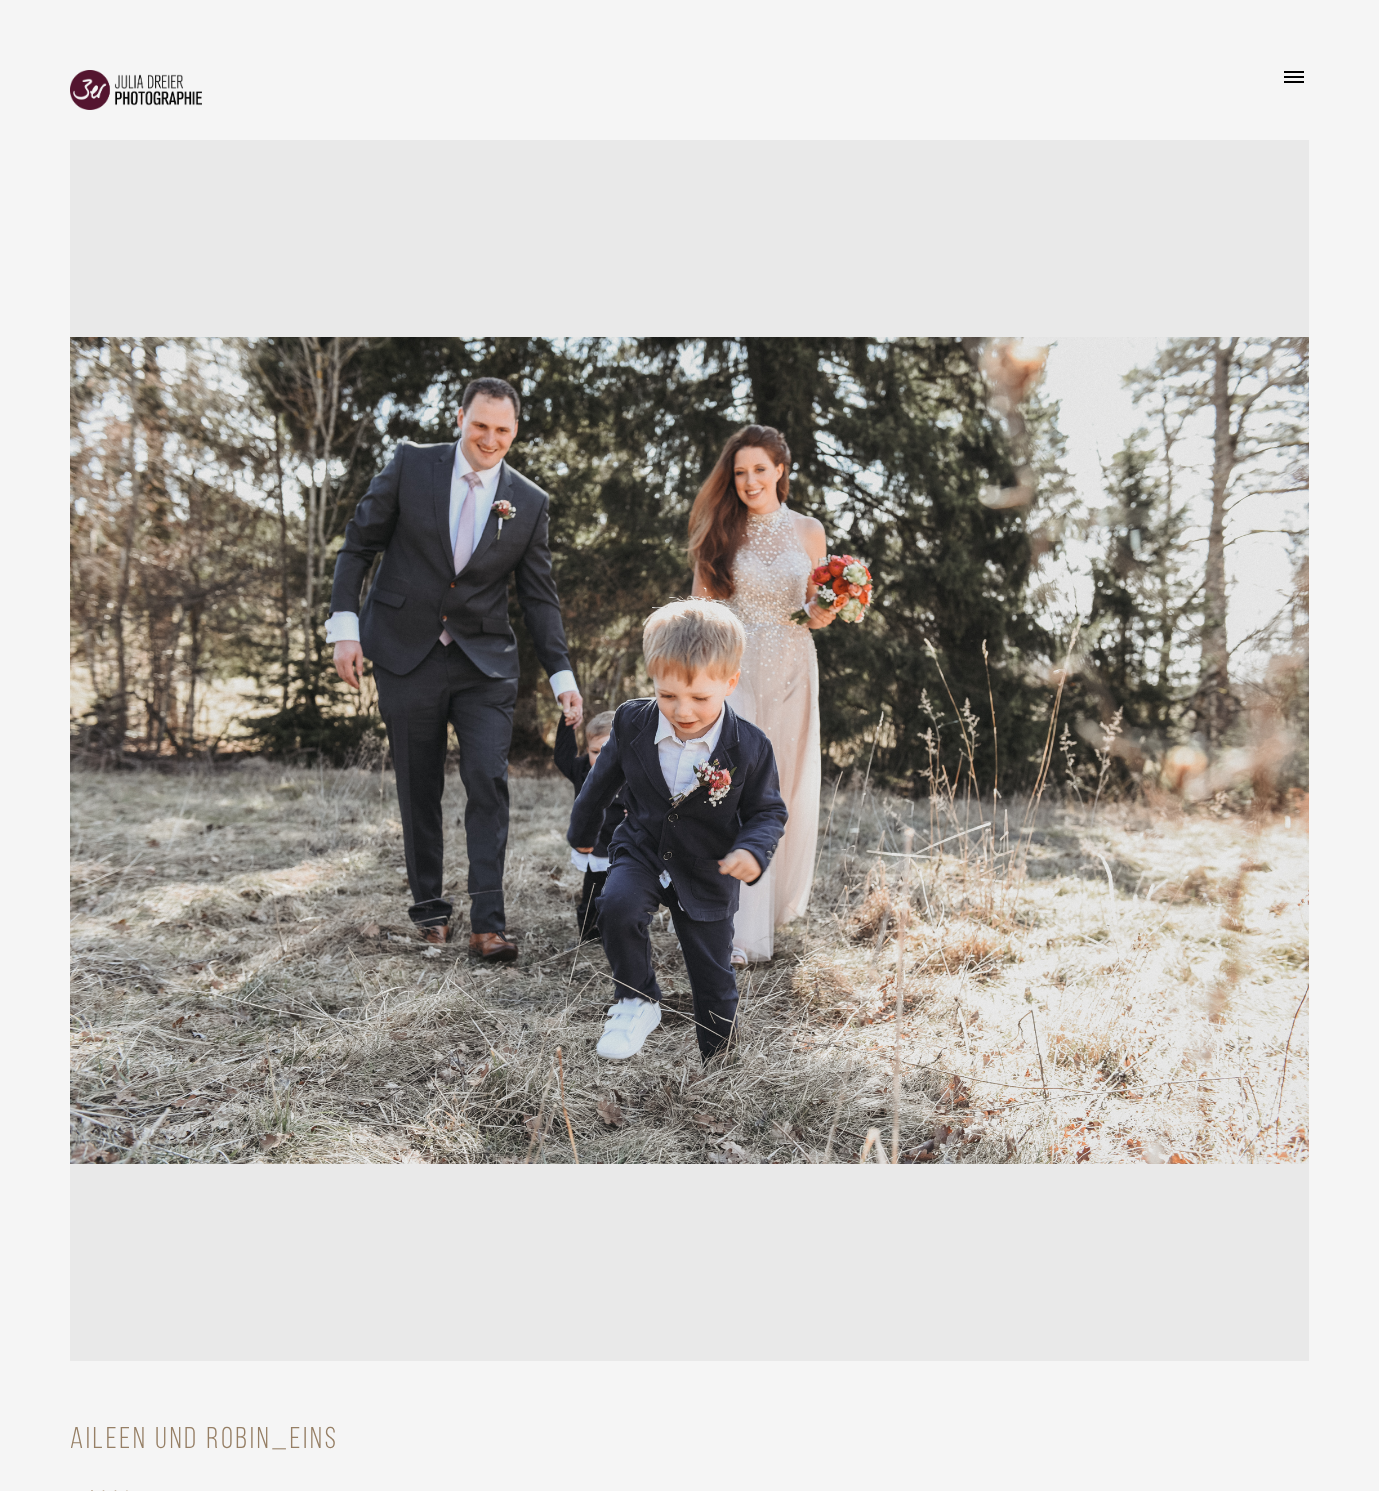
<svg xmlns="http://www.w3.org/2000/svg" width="1379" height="1491">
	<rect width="100%" height="100%" fill="#F5F5F5" />
	<image x="70" y="70" width="132" height="40" href="assets/img1.png" />
	<rect x="1284" y="76" width="20" height="2" fill="#000000" />
	<rect x="1284" y="71" width="20" height="2" fill="#000000" />
	<rect x="1284" y="81" width="20" height="2" fill="#000000" />
	<rect x="70" y="140" width="1239" height="1221" fill="#E9E9E9" />
	<image x="70" y="337" width="1239" height="827" href="assets/img2.png" />
	<text x="70" y="1448" font-family="Bebas Neue" font-size="30" letter-spacing="3" fill="#967F65">Aileen und Robin_eins</text>
	<path d="M85.5 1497L92.5 1490.5M98.5 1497L91.5 1490.5M97.5 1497L104 1490.5M110 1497L103 1490.5M109 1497L116 1490.5M121.5 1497L115 1490.5M120.5 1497L127.5 1490.5" fill="none" stroke="#C9BEB1" stroke-width="1.5" />
</svg>
